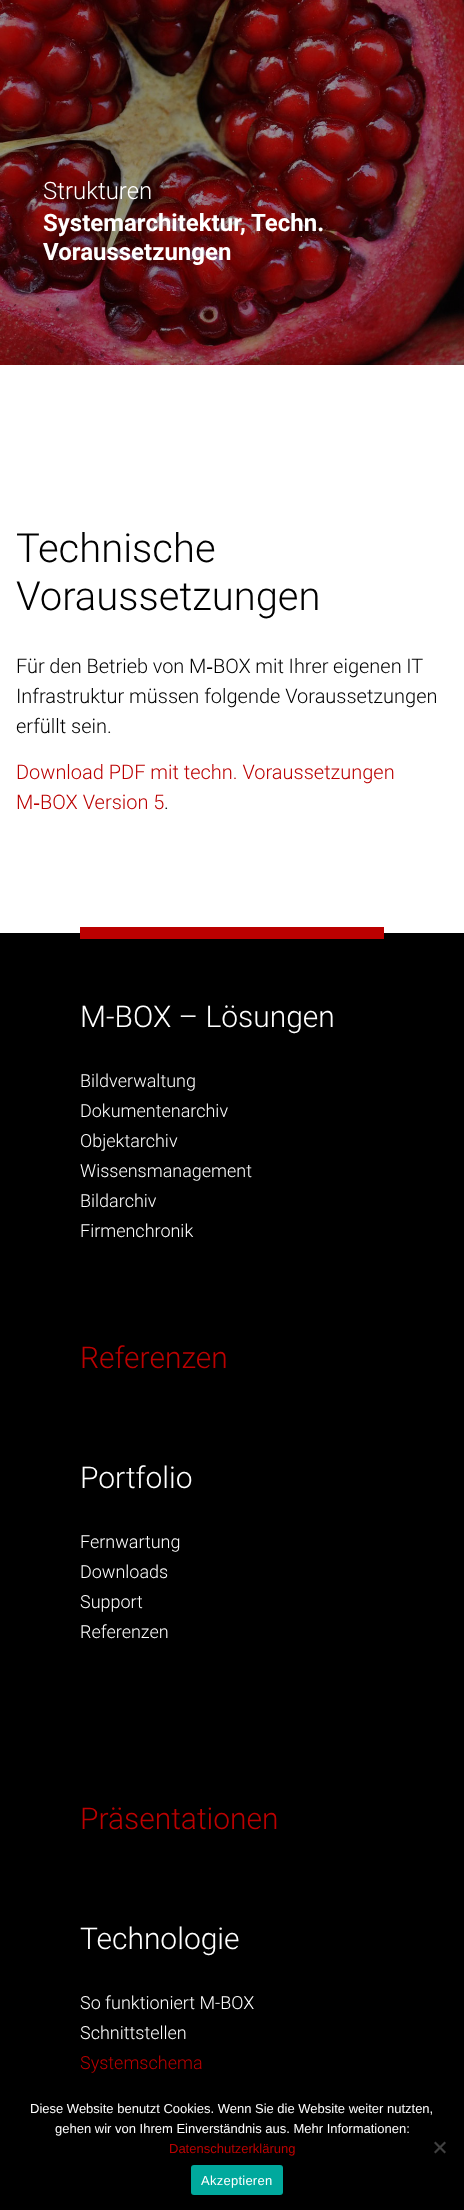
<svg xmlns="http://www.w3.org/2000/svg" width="464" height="2210">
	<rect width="100%" height="100%" fill="#FFFFFF" />
	<image x="0" y="0" width="464" height="365" href="assets/img1.png" />
	<text x="43" y="199" font-family="Roboto" font-size="24" font-weight="300" fill="#FFFFFF">Strukturen</text>
	<g font-family="Roboto" font-size="24" font-weight="700" fill="#FFFFFF">
		<text x="43" y="231">Systemarchitektur, Techn.</text>
		<text x="43" y="260">Voraussetzungen</text>
	</g>
	<g font-family="Roboto" font-size="40" font-weight="300" fill="#000000">
		<text x="16" y="562">Technische</text>
		<text x="16" y="610">Voraussetzungen</text>
	</g>
	<g font-family="Roboto" font-size="20" font-weight="300" fill="#000000">
		<text x="16" y="673" word-spacing="-0.25">Für den Betrieb von M‑BOX mit Ihrer eigenen IT</text>
		<text x="16" y="703">Infrastruktur müssen folgende Voraussetzungen</text>
		<text x="16" y="733">erfüllt sein.</text>
	</g>
	<g font-family="Roboto" font-size="20" font-weight="300" fill="#BB0000">
		<text x="16" y="779">Download PDF mit techn. Voraussetzungen</text>
		<text x="16" y="809">M‑</text>
		<text x="40" y="809">BOX Version 5</text>
	</g>
	<text x="164" y="809" font-family="Roboto" font-size="20" font-weight="300" fill="#000000">.</text>
	<rect x="0" y="933" width="464" height="1277" fill="#000000" />
	<rect x="80" y="927" width="304" height="12" fill="#BB0000" />
	<text x="80" y="1027" font-family="Roboto" font-size="30" font-weight="300" fill="#FFFFFF">M-BOX – Lösungen</text>
	<g font-family="Roboto" font-size="18" font-weight="300" fill="#FFFFFF">
		<text x="80" y="1087">Bildverwaltung</text>
		<text x="80" y="1117">Dokumentenarchiv</text>
		<text x="80" y="1147">Objektarchiv</text>
		<text x="80" y="1177">Wissensmanagement</text>
		<text x="80" y="1207">Bildarchiv</text>
		<text x="80" y="1237">Firmenchronik</text>
	</g>
	<text x="80" y="1368" font-family="Roboto" font-size="30" font-weight="300" fill="#BB0000">Referenzen</text>
	<text x="80" y="1488" font-family="Roboto" font-size="30" font-weight="300" fill="#FFFFFF">Portfolio</text>
	<g font-family="Roboto" font-size="18" font-weight="300" fill="#FFFFFF">
		<text x="80" y="1548">Fernwartung</text>
		<text x="80" y="1578">Downloads</text>
		<text x="80" y="1608">Support</text>
		<text x="80" y="1638">Referenzen</text>
	</g>
	<text x="80" y="1829" font-family="Roboto" font-size="30" font-weight="300" fill="#BB0000">Präsentationen</text>
	<text x="80" y="1949" font-family="Roboto" font-size="30" font-weight="300" fill="#FFFFFF">Technologie</text>
	<g font-family="Roboto" font-size="18" font-weight="300" fill="#FFFFFF">
		<text x="80" y="2009">So funktioniert M-BOX</text>
		<text x="80" y="2039">Schnittstellen</text>
	</g>
	<text x="80" y="2069" font-family="Roboto" font-size="18" font-weight="300" fill="#BB0000">Systemschema</text>
	<g font-family="Liberation Sans" font-size="13" fill="#FFFFFF">
		<text x="30" y="2113">Diese Website benutzt Cookies. Wenn Sie die Website weiter nutzten,</text>
		<text x="55" y="2133">gehen wir von Ihrem Einverständnis aus. Mehr Informationen:</text>
	</g>
	<text x="169" y="2153" font-family="Liberation Sans" font-size="13" fill="#BB0000">Datenschutzerklärung</text>
	<path d="M444.5 2141.5L446 2143L435.5 2153.5L434 2152Z" fill="#404040" />
	<path d="M434 2143L435.5 2141.5L446 2152L444.5 2153.5Z" fill="#404040" />
	<rect x="191" y="2165" width="92" height="30" rx="3" fill="#00A99D" />
	<text x="201" y="2185" font-family="Liberation Sans" font-size="13" letter-spacing="0.25" fill="#FFFFFF">Akzeptieren</text>
</svg>
